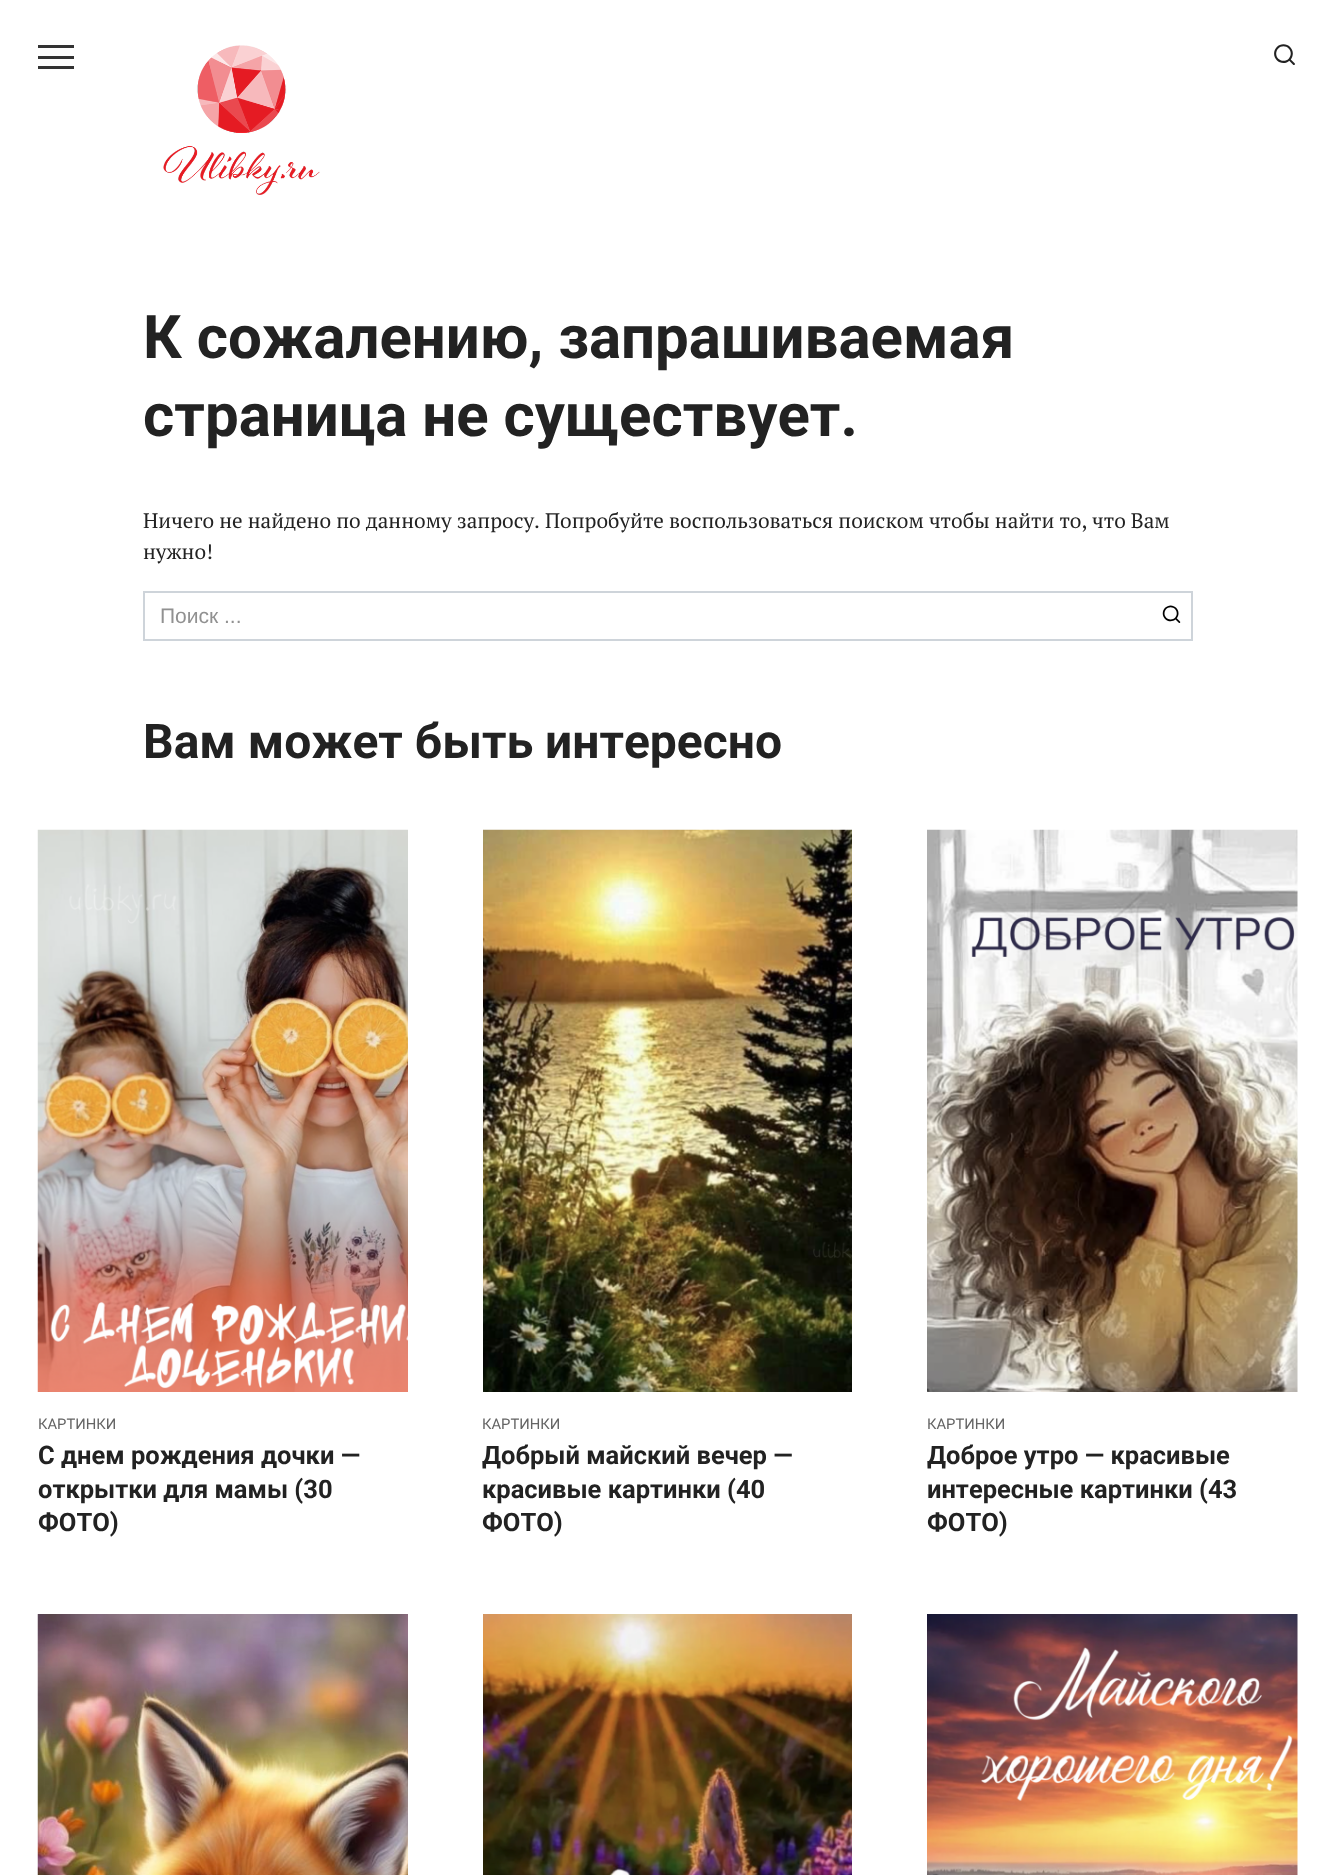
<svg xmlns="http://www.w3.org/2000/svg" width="1335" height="1875">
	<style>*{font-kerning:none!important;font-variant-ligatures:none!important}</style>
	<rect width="100%" height="100%" fill="#FFFFFF" />
	<rect x="38" y="45" width="36" height="3" fill="#333333" />
	<rect x="38" y="56" width="36" height="3" fill="#333333" />
	<rect x="38" y="66" width="36" height="3" fill="#333333" />
	<image x="163" y="45" width="157" height="150" href="assets/img1.png" />
	<text x="1272" y="65" font-family="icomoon" font-size="25" fill="#222222">🔍</text>
	<g font-family="Roboto" font-size="60" font-weight="700" fill="#222222">
		<text x="143" y="358">К сожалению, запрашиваемая</text>
		<text x="143" y="436">страница не существует.</text>
	</g>
	<g font-family="PT Serif" font-size="21" fill="#222222">
		<text x="143" y="528">Ничего не найдено по данному запросу. Попробуйте воспользоваться поиском чтобы найти то,</text>
		<text x="1092" y="528">что Вам</text>
		<text x="143" y="559">нужно!</text>
	</g>
	<rect x="144" y="592" width="1048" height="48" fill="none" stroke="#CED4DA" stroke-width="2" />
	<text x="160" y="623" font-family="Liberation Sans" font-size="21" fill="#919191">Поиск ...</text>
	<text x="1161" y="623" font-family="icomoon" font-size="21" fill="#000000">🔍</text>
	<text x="143" y="758" font-family="Roboto" font-size="48" font-weight="700" fill="#222222">Вам может быть интересно</text>
	<image x="37" y="829" width="371" height="563" href="assets/img2.png" />
	<text x="38" y="1429" font-family="Roboto" font-size="14.75" fill="#646464">КАРТИНКИ</text>
	<g font-family="Roboto" font-size="25.5" font-weight="700" fill="#222222">
		<text x="38" y="1464">С днем рождения дочки —</text>
		<text x="38" y="1498">открытки для мамы (30</text>
		<text x="38" y="1531">ФОТО)</text>
	</g>
	<image x="483" y="829" width="369" height="563" href="assets/img3.png" />
	<text x="482" y="1429" font-family="Roboto" font-size="14.75" fill="#646464">КАРТИНКИ</text>
	<g font-family="Roboto" font-size="25.5" font-weight="700" fill="#222222">
		<text x="482" y="1464">Добрый майский вечер —</text>
		<text x="482" y="1498">красивые картинки (40</text>
		<text x="482" y="1531">ФОТО)</text>
	</g>
	<image x="927" y="829" width="371" height="563" href="assets/img4.png" />
	<text x="927" y="1429" font-family="Roboto" font-size="14.75" fill="#646464">КАРТИНКИ</text>
	<g font-family="Roboto" font-size="25.5" font-weight="700" fill="#222222">
		<text x="927" y="1464">Доброе утро — красивые</text>
		<text x="927" y="1498">интересные картинки (43</text>
		<text x="927" y="1531">ФОТО)</text>
	</g>
	<image x="37" y="1614" width="371" height="261" href="assets/img5.png" />
	<image x="483" y="1614" width="369" height="261" href="assets/img6.png" />
	<image x="927" y="1614" width="371" height="261" href="assets/img7.png" />
</svg>
